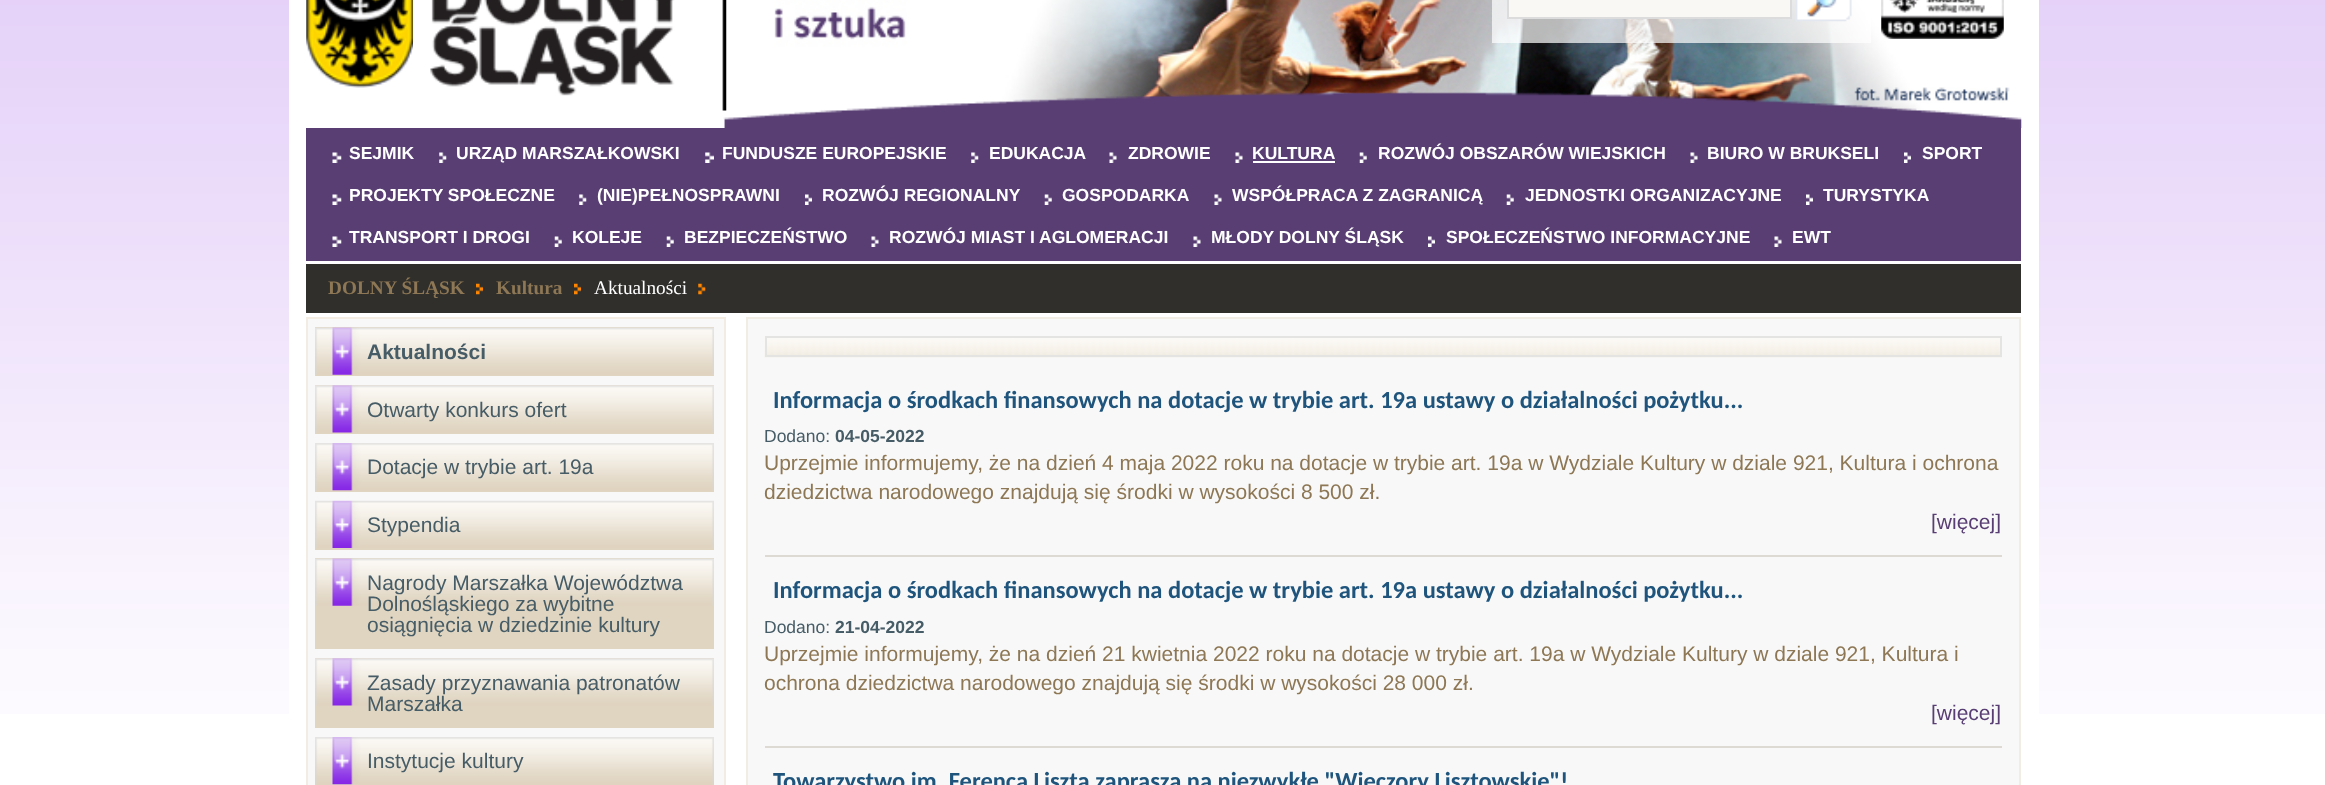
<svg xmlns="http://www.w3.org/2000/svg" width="2325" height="785">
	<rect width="100%" height="100%" fill="#FFFFFF" />
	<image x="0" y="0" width="2325" height="714" href="assets/img1.png" />
	<rect x="289" y="0" width="1750" height="714" fill="#FFFFFF" />
	<image x="774" y="0" width="1236" height="120" href="assets/img2.png" />
	<image x="306" y="0" width="107" height="88" href="assets/img3.png" />
	<image x="430" y="0" width="297" height="111" href="assets/img4.png" />
	<rect x="1492" y="0" width="379" height="43" fill="#FFFFFF" fill-opacity="0.7" />
	<rect x="1508" y="-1" width="283" height="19" fill="#FAF8F4" stroke="#DCDCDC" stroke-width="2" />
	<image x="1795" y="0" width="57" height="22" href="assets/img5.png" />
	<image x="1881" y="0" width="123" height="39" href="assets/img6.png" />
	<image x="723" y="91" width="1299" height="37" href="assets/img7.png" />
	<rect x="306" y="128" width="1715" height="133" fill="#583E73" />
	<image x="332" y="152" width="10" height="11" href="assets/img8.png" />
	<text x="349" y="159" font-family="Liberation Sans" font-size="17.5" font-weight="700" fill="#FFFFFF">SEJMIK</text>
	<image x="439" y="152" width="8" height="11" href="assets/img9.png" />
	<text x="456" y="159" font-family="Liberation Sans" font-size="17.5" font-weight="700" fill="#FFFFFF">URZĄD MARSZAŁKOWSKI</text>
	<image x="705" y="152" width="9" height="11" href="assets/img10.png" />
	<text x="722" y="159" font-family="Liberation Sans" font-size="17.5" font-weight="700" fill="#FFFFFF">FUNDUSZE EUROPEJSKIE</text>
	<image x="971" y="152" width="8" height="11" href="assets/img9.png" />
	<text x="989" y="159" font-family="Liberation Sans" font-size="17.5" font-weight="700" fill="#FFFFFF">EDUKACJA</text>
	<image x="1109" y="152" width="8" height="11" href="assets/img11.png" />
	<text x="1128" y="159" font-family="Liberation Sans" font-size="17.5" font-weight="700" fill="#FFFFFF">ZDROWIE</text>
	<image x="1235" y="152" width="8" height="11" href="assets/img11.png" />
	<text x="1252" y="159" font-family="Liberation Sans" font-size="17.5" font-weight="700" fill="#FFFFFF">KULTURA</text>
	<rect x="1253" y="161" width="82" height="2" fill="#FFFFFF" />
	<image x="1359" y="152" width="8" height="11" href="assets/img12.png" />
	<text x="1378" y="159" font-family="Liberation Sans" font-size="17.5" font-weight="700" fill="#FFFFFF">ROZWÓJ OBSZARÓW WIEJSKICH</text>
	<image x="1690" y="152" width="8" height="11" href="assets/img11.png" />
	<text x="1707" y="159" font-family="Liberation Sans" font-size="17.5" font-weight="700" fill="#FFFFFF">BIURO W BRUKSELI</text>
	<image x="1904" y="152" width="7" height="11" href="assets/img13.png" />
	<text x="1922" y="159" font-family="Liberation Sans" font-size="17.5" font-weight="700" fill="#FFFFFF">SPORT</text>
	<image x="332" y="194" width="10" height="11" href="assets/img8.png" />
	<text x="349" y="201" font-family="Liberation Sans" font-size="17.5" font-weight="700" fill="#FFFFFF">PROJEKTY SPOŁECZNE</text>
	<image x="579" y="194" width="8" height="11" href="assets/img9.png" />
	<text x="597" y="201" font-family="Liberation Sans" font-size="17.5" font-weight="700" fill="#FFFFFF">(NIE)PEŁNOSPRAWNI</text>
	<image x="805" y="194" width="7" height="11" href="assets/img14.png" />
	<text x="822" y="201" font-family="Liberation Sans" font-size="17.5" font-weight="700" fill="#FFFFFF">ROZWÓJ REGIONALNY</text>
	<image x="1044" y="194" width="8" height="11" href="assets/img12.png" />
	<text x="1062" y="201" font-family="Liberation Sans" font-size="17.5" font-weight="700" fill="#FFFFFF">GOSPODARKA</text>
	<image x="1214" y="194" width="8" height="11" href="assets/img11.png" />
	<text x="1232" y="201" font-family="Liberation Sans" font-size="17.5" font-weight="700" fill="#FFFFFF">WSPÓŁPRACA Z ZAGRANICĄ</text>
	<image x="1506" y="194" width="8" height="11" href="assets/img12.png" />
	<text x="1525" y="201" font-family="Liberation Sans" font-size="17.5" font-weight="700" fill="#FFFFFF">JEDNOSTKI ORGANIZACYJNE</text>
	<image x="1806" y="194" width="7" height="11" href="assets/img13.png" />
	<text x="1823" y="201" font-family="Liberation Sans" font-size="17.5" font-weight="700" fill="#FFFFFF">TURYSTYKA</text>
	<image x="332" y="236" width="10" height="11" href="assets/img8.png" />
	<text x="349" y="243" font-family="Liberation Sans" font-size="17.5" font-weight="700" fill="#FFFFFF">TRANSPORT I DROGI</text>
	<image x="554" y="236" width="8" height="11" href="assets/img12.png" />
	<text x="572" y="243" font-family="Liberation Sans" font-size="17.5" font-weight="700" fill="#FFFFFF">KOLEJE</text>
	<image x="666" y="236" width="8" height="11" href="assets/img12.png" />
	<text x="684" y="243" font-family="Liberation Sans" font-size="17.5" font-weight="700" fill="#FFFFFF">BEZPIECZEŃSTWO</text>
	<image x="871" y="236" width="8" height="11" href="assets/img11.png" />
	<text x="889" y="243" font-family="Liberation Sans" font-size="17.5" font-weight="700" fill="#FFFFFF">ROZWÓJ MIAST I AGLOMERACJI</text>
	<image x="1193" y="236" width="8" height="11" href="assets/img11.png" />
	<text x="1211" y="243" font-family="Liberation Sans" font-size="17.5" font-weight="700" fill="#FFFFFF">MŁODY DOLNY ŚLĄSK</text>
	<image x="1428" y="236" width="7" height="11" href="assets/img14.png" />
	<text x="1446" y="243" font-family="Liberation Sans" font-size="17.5" font-weight="700" fill="#FFFFFF">SPOŁECZEŃSTWO INFORMACYJNE</text>
	<image x="1774" y="236" width="8" height="11" href="assets/img11.png" />
	<text x="1792" y="243" font-family="Liberation Sans" font-size="17.5" font-weight="700" fill="#FFFFFF">EWT</text>
	<rect x="306" y="264" width="1715" height="49" fill="#312F2C" />
	<text x="328" y="294" font-family="Liberation Serif" font-size="19.25" font-weight="700" fill="#8D7754">DOLNY ŚLĄSK</text>
	<image x="476" y="283" width="7" height="12" href="assets/img15.png" />
	<text x="496" y="294" font-family="Liberation Serif" font-size="19.25" font-weight="700" fill="#8D7754">Kultura</text>
	<image x="574" y="283" width="7" height="12" href="assets/img15.png" />
	<text x="594" y="294" font-family="Liberation Serif" font-size="19.25" fill="#FFFFFF">Aktualności</text>
	<image x="698" y="283" width="8" height="12" href="assets/img16.png" />
	<rect x="307" y="318" width="418" height="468" fill="#F8F8F8" stroke="#F2ECE3" stroke-width="2" />
	<rect x="315" y="327" width="399" height="49" fill="#E0D5C1" />
	<image x="315" y="327" width="399" height="48" href="assets/img17.png" />
	<text x="367" y="359" font-family="Liberation Sans" font-size="21" font-weight="700" fill="#465C66">Aktualności</text>
	<rect x="315" y="385" width="399" height="49" fill="#E0D5C1" />
	<image x="315" y="385" width="399" height="48" href="assets/img18.png" />
	<text x="367" y="417" font-family="Liberation Sans" font-size="21" fill="#465C66">Otwarty konkurs ofert</text>
	<rect x="315" y="490" width="399" height="2" fill="#E0D5C1" />
	<image x="315" y="443" width="399" height="48" href="assets/img19.png" />
	<text x="367" y="474" font-family="Liberation Sans" font-size="21" fill="#465C66">Dotacje w trybie art. 19a</text>
	<rect x="315" y="548" width="399" height="2" fill="#E0D5C1" />
	<image x="315" y="500" width="399" height="48" href="assets/img20.png" />
	<text x="367" y="532" font-family="Liberation Sans" font-size="21" fill="#465C66">Stypendia</text>
	<rect x="315" y="558" width="399" height="91" fill="#E0D5C1" />
	<image x="315" y="558" width="399" height="48" href="assets/img17.png" />
	<g font-family="Liberation Sans" font-size="21" fill="#465C66">
		<text x="367" y="590">Nagrody Marszałka Województwa</text>
		<text x="367" y="611">Dolnośląskiego za wybitne</text>
		<text x="367" y="632">osiągnięcia w dziedzinie kultury</text>
	</g>
	<rect x="315" y="658" width="399" height="70" fill="#E0D5C1" />
	<image x="315" y="658" width="399" height="48" href="assets/img18.png" />
	<g font-family="Liberation Sans" font-size="21" fill="#465C66">
		<text x="367" y="690">Zasady przyznawania patronatów</text>
		<text x="367" y="711">Marszałka</text>
	</g>
	<rect x="315" y="784" width="399" height="1" fill="#E0D5C1" />
	<image x="315" y="737" width="399" height="48" href="assets/img19.png" />
	<text x="367" y="768" font-family="Liberation Sans" font-size="21" fill="#465C66">Instytucje kultury</text>
	<rect x="747" y="318" width="1273" height="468" fill="#F8F8F8" stroke="#F2EDE4" stroke-width="2" />
	<image x="764" y="338" width="1238" height="20" href="assets/img21.png" />
	<rect x="766" y="337" width="1235" height="19" fill="none" stroke="#E4E4E2" stroke-width="2" />
	<rect x="765" y="555" width="1237" height="2" fill="#DDDAD4" />
	<text x="773" y="408" font-family="Carlito" font-size="24.5" font-weight="700" fill="#1F557D">Informacja o środkach finansowych na dotacje w trybie art. 19a ustawy o działalności pożytku...</text>
	<text x="764" y="442" font-family="Liberation Sans" font-size="17.5" fill="#465C66">Dodano:</text>
	<text x="835" y="442" font-family="Liberation Sans" font-size="17.5" font-weight="700" fill="#465C66">04-05-2022</text>
	<g font-family="Liberation Sans" font-size="21" fill="#8D7754">
		<text x="764" y="470">Uprzejmie informujemy, że na dzień 4 maja 2022 roku na dotacje w trybie art. 19a w Wydziale Kultury w dziale 921, Kultura i ochrona</text>
		<text x="764" y="499">dziedzictwa narodowego znajdują się środki w wysokości 8 500 zł.</text>
	</g>
	<text x="1931" y="529" font-family="Liberation Sans" font-size="21" fill="#583E73">[więcej]</text>
	<rect x="765" y="746" width="1237" height="2" fill="#DDDAD4" />
	<text x="773" y="598" font-family="Carlito" font-size="24.5" font-weight="700" fill="#1F557D">Informacja o środkach finansowych na dotacje w trybie art. 19a ustawy o działalności pożytku...</text>
	<text x="764" y="633" font-family="Liberation Sans" font-size="17.5" fill="#465C66">Dodano:</text>
	<text x="835" y="633" font-family="Liberation Sans" font-size="17.5" font-weight="700" fill="#465C66">21-04-2022</text>
	<g font-family="Liberation Sans" font-size="21" fill="#8D7754">
		<text x="764" y="661">Uprzejmie informujemy, że na dzień 21 kwietnia 2022 roku na dotacje w trybie art. 19a w Wydziale Kultury w dziale 921, Kultura i</text>
		<text x="764" y="690">ochrona dziedzictwa narodowego znajdują się środki w wysokości 28 000 zł.</text>
	</g>
	<text x="1931" y="720" font-family="Liberation Sans" font-size="21" fill="#583E73">[więcej]</text>
	<text x="773" y="789" font-family="Carlito" font-size="24.5" font-weight="700" fill="#1F557D">Towarzystwo im. Ferenca Liszta zaprasza na niezwykłe "Wieczory Lisztowskie"!</text>
</svg>
